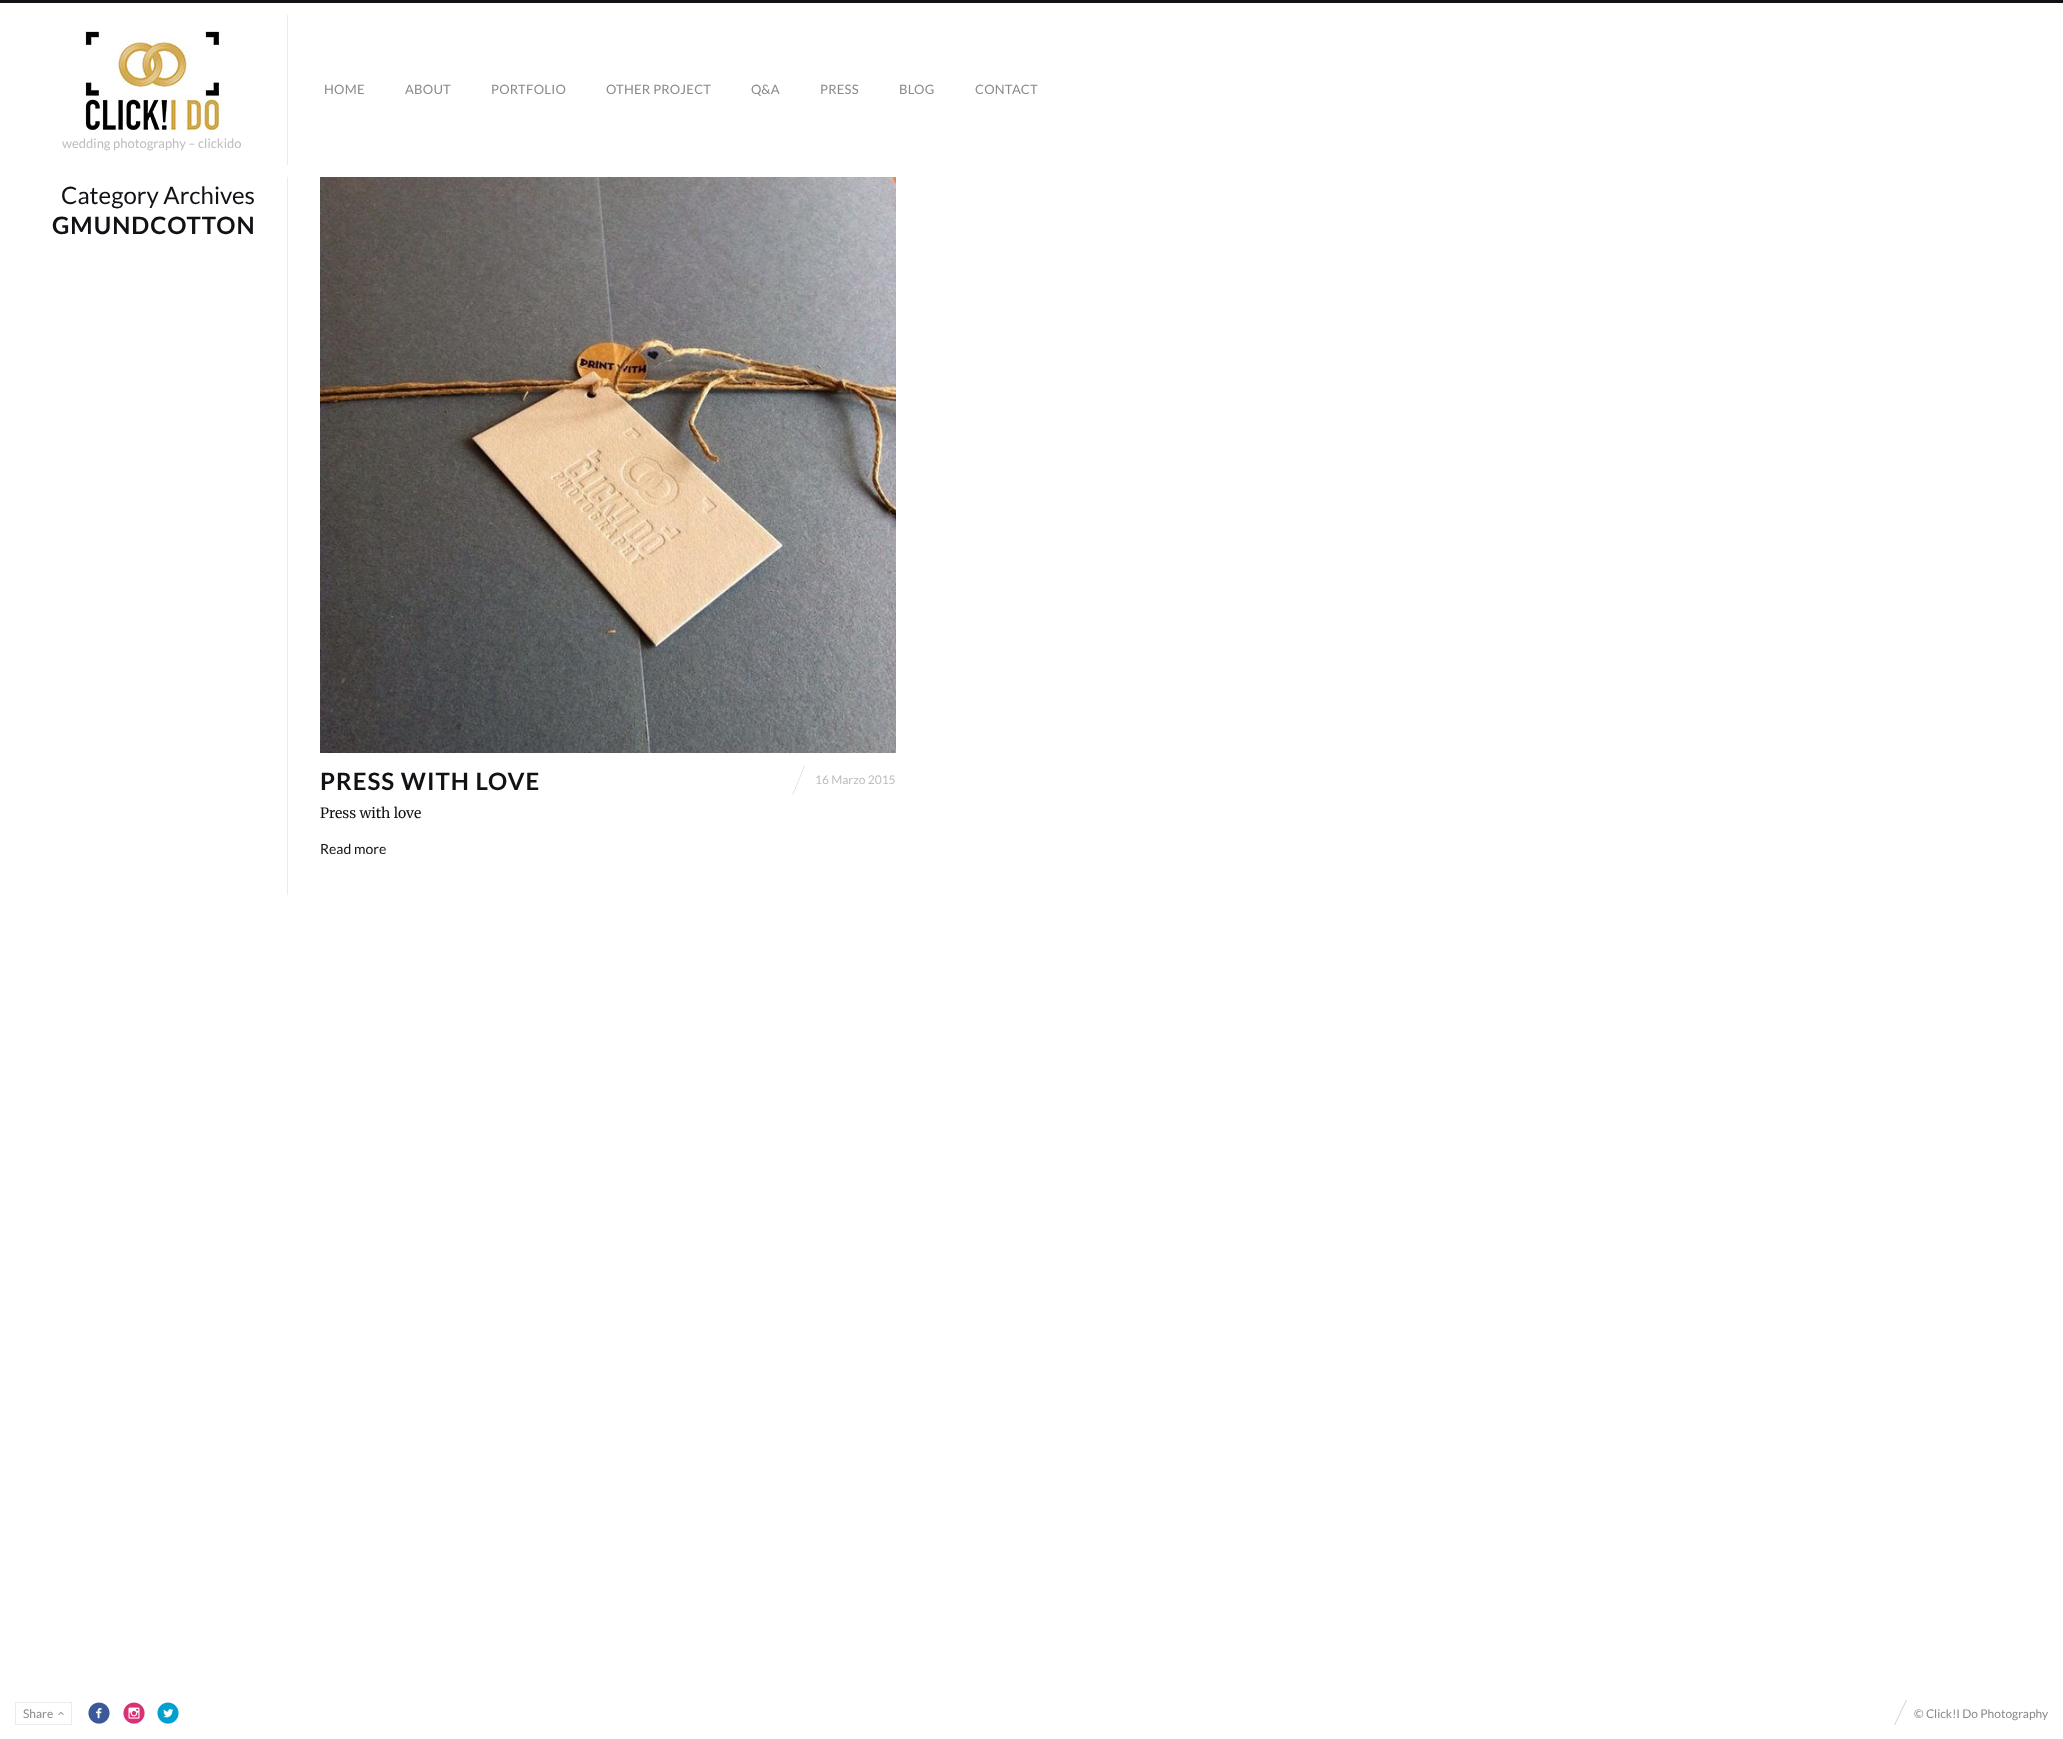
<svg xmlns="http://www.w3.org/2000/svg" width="2063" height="1739">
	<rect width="100%" height="100%" fill="#FFFFFF" />
	<rect x="0" y="0" width="2063" height="3" fill="#111116" />
	<g font-family="Lato" font-size="13" letter-spacing="0.25" fill="#8A8A8A">
		<text x="324" y="94">HOME</text>
		<text x="405" y="94">ABOUT</text>
		<text x="491" y="94">PORTFOLIO</text>
		<text x="606" y="94">OTHER PROJECT</text>
		<text x="751" y="94">Q&amp;A</text>
		<text x="820" y="94">PRESS</text>
		<text x="899" y="94">BLOG</text>
		<text x="975" y="94">CONTACT</text>
	</g>
	<rect x="287" y="15" width="1" height="150" fill="#EBEBEB" />
	<image x="79" y="31" width="144" height="100" href="assets/img1.png" />
	<text x="62" y="148" font-family="Lato" font-size="13" fill="#BDBDBD">wedding photography – clickido</text>
	<rect x="287" y="177" width="1" height="718" fill="#EBEBEB" />
	<text x="61" y="204" font-family="Lato" font-size="24" fill="#111116">Category Archives</text>
	<text x="52" y="234" font-family="Lato" font-size="24" font-weight="700" letter-spacing="1" fill="#111116">GMUNDCOTTON</text>
	<image x="320" y="177" width="576" height="576" href="assets/img2.png" />
	<text x="320" y="790" font-family="Lato" font-size="24" font-weight="700" letter-spacing="1" fill="#111116">PRESS WITH LOVE</text>
	<image x="792" y="765" width="13" height="30" href="assets/img3.png" />
	<text x="815" y="784" font-family="Lato" font-size="12" fill="#BDBDBD">16 Marzo 2015</text>
	<text x="320" y="818" font-family="Merriweather" font-size="14" font-weight="300" fill="#111116">Press with love</text>
	<text x="320" y="854" font-family="Lato" font-size="14" fill="#111116">Read more</text>
	<rect x="15.5" y="1702.5" width="56" height="22" fill="none" stroke="#EBEBEB" />
	<text x="23" y="1718" font-family="Lato" font-size="12" fill="#8A8A8A">Share</text>
	<image x="58" y="1712" width="6" height="3" href="assets/img4.png" />
	<image x="88" y="1702" width="22" height="22" href="assets/img5.png" />
	<image x="123" y="1702" width="22" height="22" href="assets/img6.png" />
	<image x="157" y="1702" width="22" height="22" href="assets/img7.png" />
	<image x="1894" y="1700" width="13" height="25" href="assets/img8.png" />
	<text x="1914" y="1718" font-family="Lato" font-size="12" fill="#8A8A8A">© Click!I Do Photography</text>
</svg>
